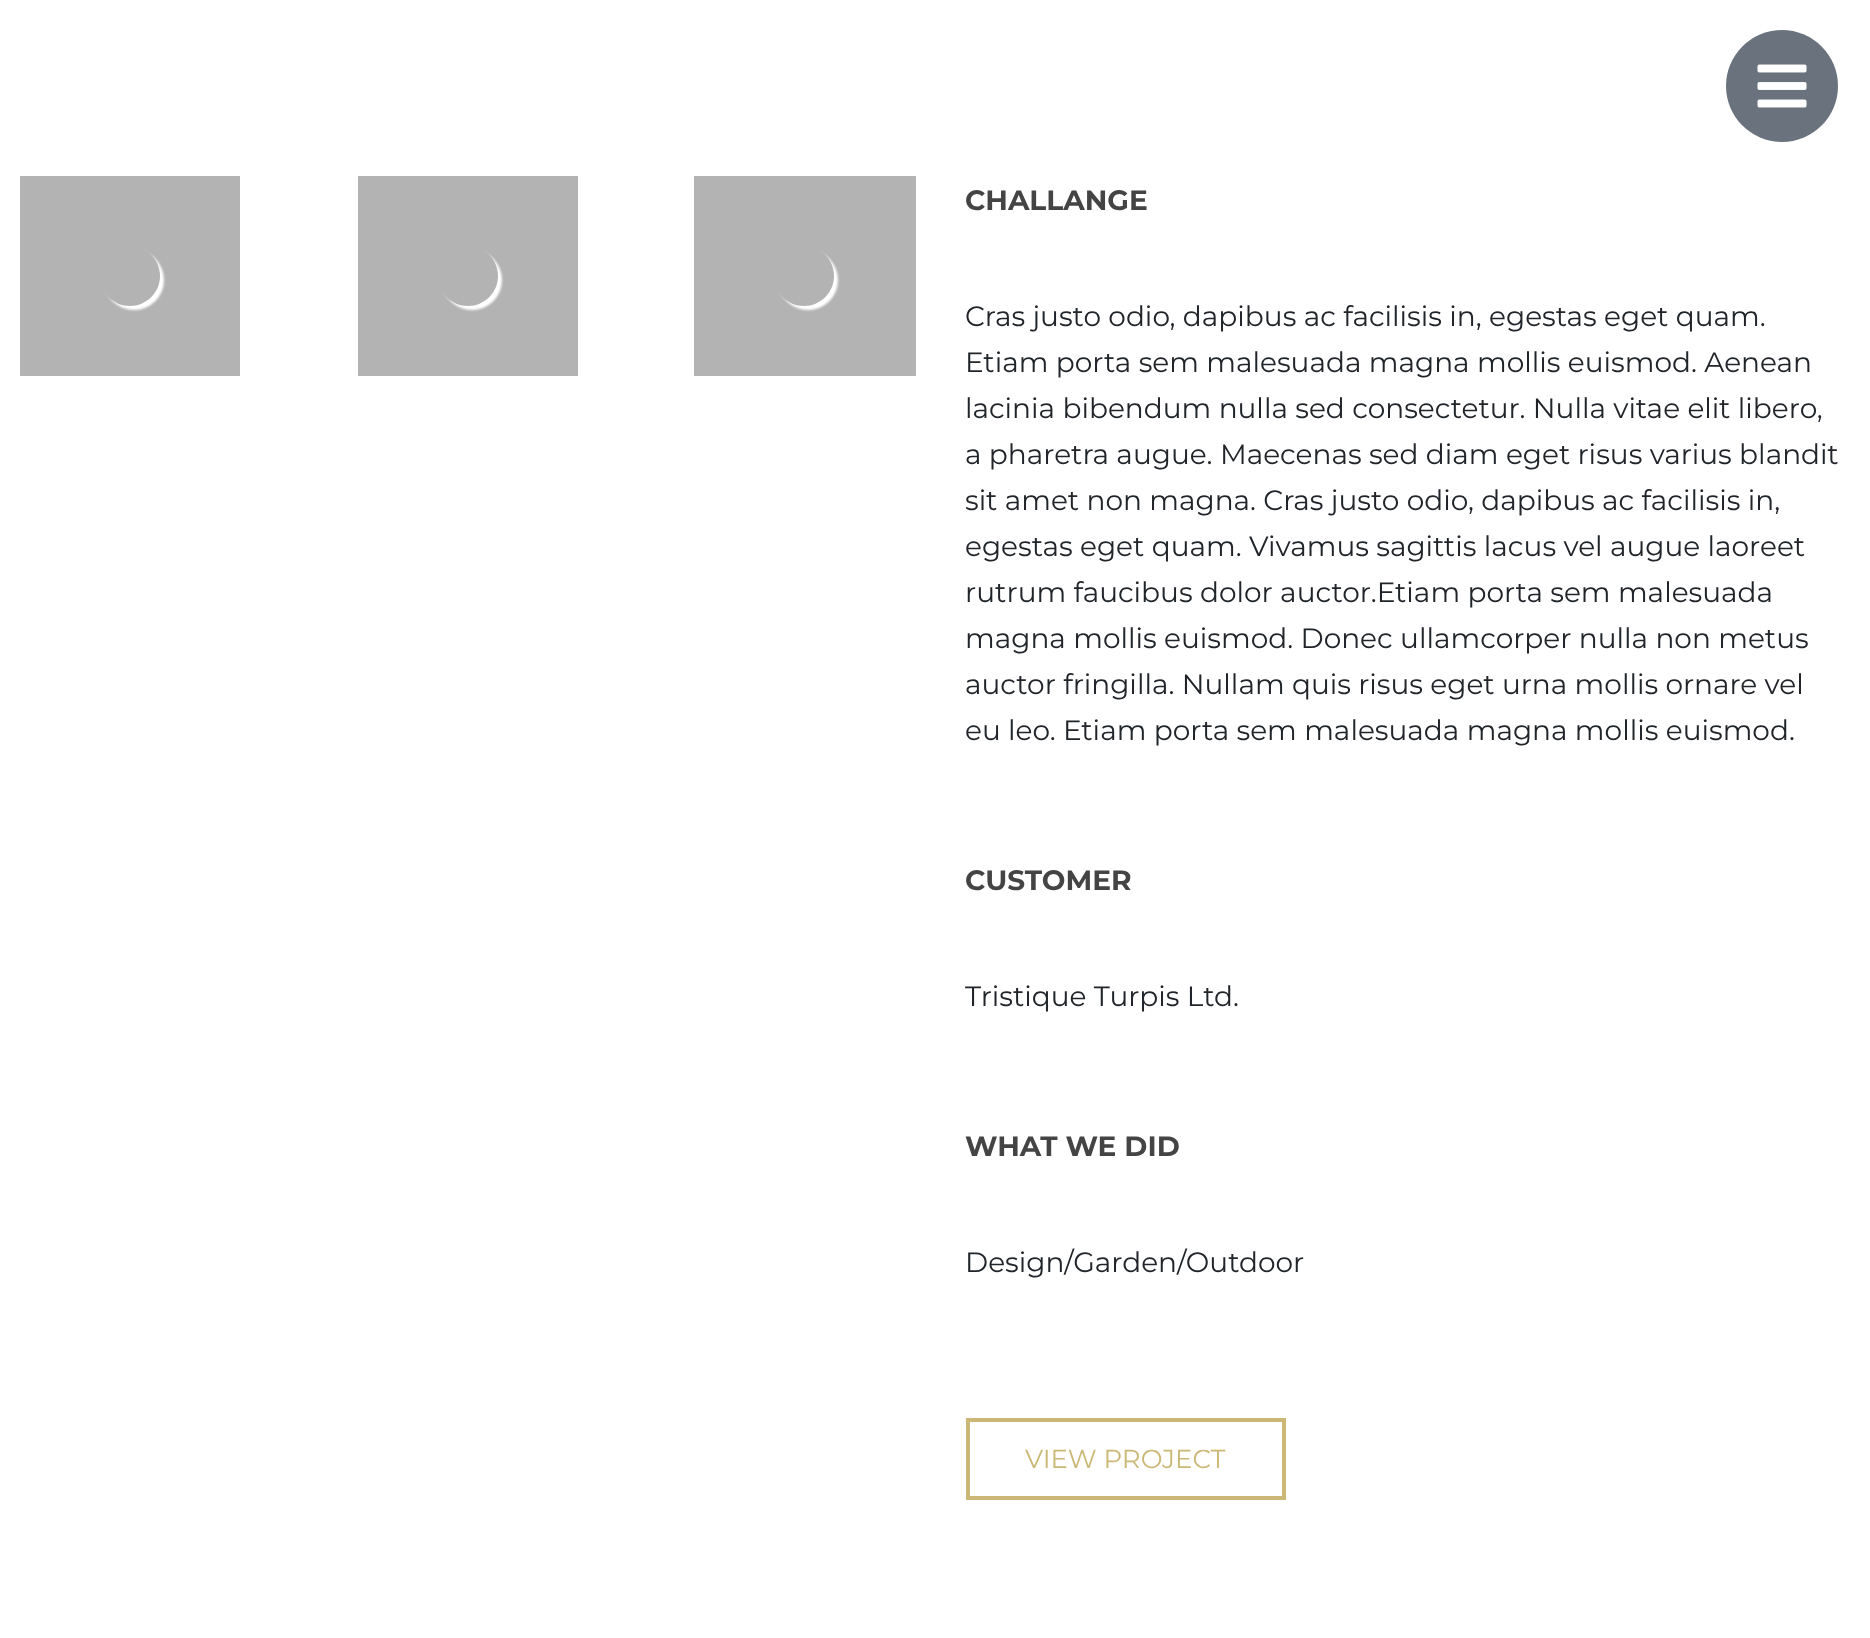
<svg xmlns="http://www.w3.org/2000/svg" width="1870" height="1638">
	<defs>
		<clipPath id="clip1"><path d="M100 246H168V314H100ZM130 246C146.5 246 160 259.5 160 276C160 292.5 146.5 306 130 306C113.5 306 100 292.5 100 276C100 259.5 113.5 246 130 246Z" clip-rule="evenodd" /></clipPath>
		<clipPath id="clip2"><path d="M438 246H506V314H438ZM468 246C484.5 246 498 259.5 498 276C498 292.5 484.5 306 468 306C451.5 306 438 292.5 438 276C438 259.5 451.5 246 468 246Z" clip-rule="evenodd" /></clipPath>
		<clipPath id="clip3"><path d="M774 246H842V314H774ZM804 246C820.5 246 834 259.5 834 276C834 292.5 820.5 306 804 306C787.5 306 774 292.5 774 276C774 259.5 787.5 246 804 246Z" clip-rule="evenodd" /></clipPath>
	</defs>
	<rect width="100%" height="100%" fill="#FFFFFF" />
	<circle cx="1782" cy="86" r="56" fill="#69727D" />
	<image x="1757" y="64" width="50" height="44" href="assets/img1.png" />
	<rect x="20" y="176" width="220" height="200" fill="#B3B3B3" />
	<g clip-path="url(#clip1)">
		<rect x="104" y="250" width="60" height="60" rx="30" fill="#FFFFFF" filter="blur(1px)" />
	</g>
	<rect x="358" y="176" width="220" height="200" fill="#B3B3B3" />
	<g clip-path="url(#clip2)">
		<rect x="442" y="250" width="60" height="60" rx="30" fill="#FFFFFF" filter="blur(1px)" />
	</g>
	<rect x="694" y="176" width="222" height="200" fill="#B3B3B3" />
	<g clip-path="url(#clip3)">
		<rect x="778" y="250" width="60" height="60" rx="30" fill="#FFFFFF" filter="blur(1px)" />
	</g>
	<text x="965" y="210" font-family="Montserrat" font-size="28" font-weight="700" fill="#444444">CHALLANGE</text>
	<g font-family="Montserrat" font-size="28" fill="#212529">
		<text x="965" y="326">Cras justo odio, dapibus ac facilisis in, egestas eget quam.</text>
		<text x="965" y="372">Etiam porta sem malesuada magna mollis euismod. Aenean</text>
		<text x="965" y="418">lacinia bibendum nulla sed consectetur. Nulla vitae elit libero,</text>
		<text x="965" y="464">a pharetra augue. Maecenas sed diam eget risus varius blandit</text>
		<text x="965" y="510">sit amet non magna. Cras justo odio, dapibus ac facilisis in,</text>
		<text x="965" y="556">egestas eget quam. Vivamus sagittis lacus vel augue laoreet</text>
		<text x="965" y="602">rutrum faucibus dolor auctor.Etiam porta sem malesuada</text>
		<text x="965" y="648">magna mollis euismod. Donec ullamcorper nulla non metus</text>
		<text x="965" y="694">auctor fringilla. Nullam quis risus eget urna mollis ornare vel</text>
		<text x="965" y="740">eu leo. Etiam porta sem malesuada magna mollis euismod.</text>
	</g>
	<text x="965" y="890" font-family="Montserrat" font-size="28" font-weight="700" fill="#444444">CUSTOMER</text>
	<text x="965" y="1006" font-family="Montserrat" font-size="28" fill="#212529">Tristique Turpis Ltd.</text>
	<text x="965" y="1156" font-family="Montserrat" font-size="28" font-weight="700" fill="#444444">WHAT WE DID</text>
	<text x="965" y="1272" font-family="Montserrat" font-size="28" fill="#212529">Design/Garden/Outdoor</text>
	<rect x="968" y="1420" width="316" height="78" fill="none" stroke="#CBB877" stroke-width="4" />
	<text x="1025" y="1468" font-family="Montserrat" font-size="26" fill="#CBB877">VIEW PROJECT</text>
</svg>
